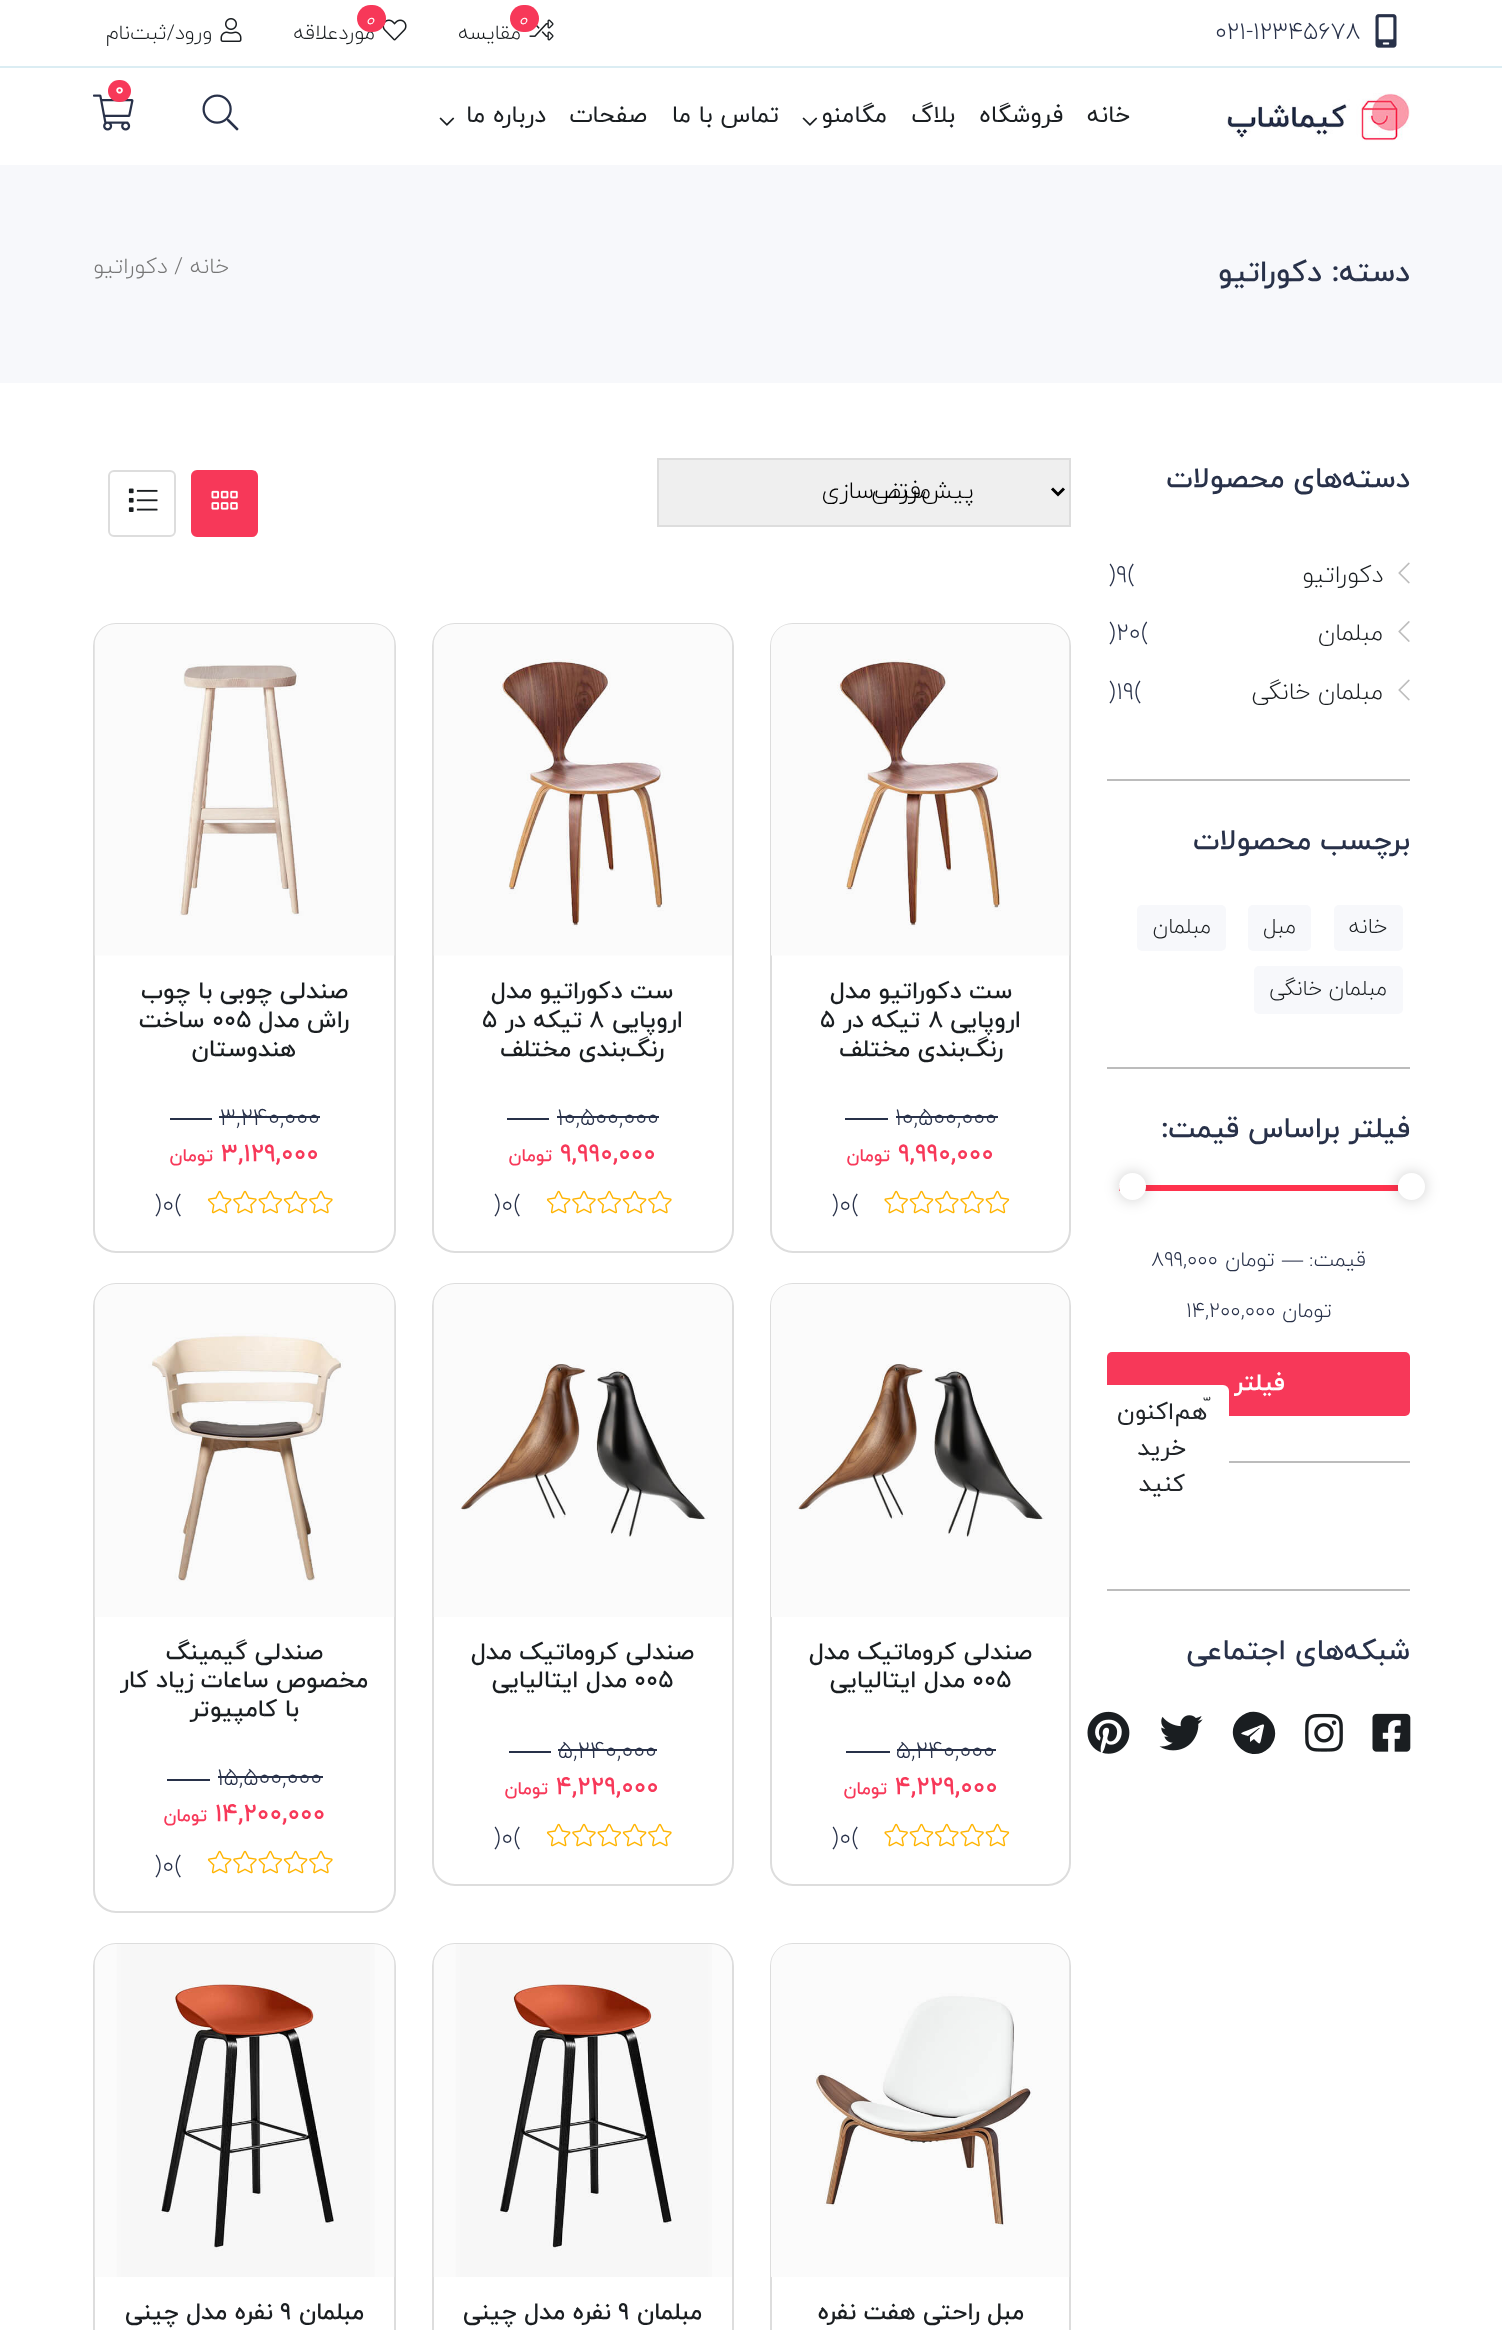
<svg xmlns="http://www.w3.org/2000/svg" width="1502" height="2330">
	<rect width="100%" height="100%" fill="#FFFFFF" />
	<rect x="0" y="66" width="1502" height="2" fill="#DBEDF3" />
	<image x="1375" y="14" width="22" height="34" href="assets/img1.png" />
	<text x="1215" y="39" font-family="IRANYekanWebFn" font-size="24" font-weight="300" fill="#283149">021-12345678</text>
	<image x="529" y="19" width="25" height="22" href="assets/img2.png" />
	<text x="521" y="39" font-family="IRANYekanWebFn" font-size="20.5" font-weight="300" direction="rtl" fill="#1A1E21">مقایسه</text>
	<rect x="510" y="5" width="29" height="27" rx="13.5" fill="#F73859" />
	<text x="518" y="26" font-family="IRANYekanWebFn" font-size="19" font-weight="300" font-style="italic" fill="#FFFFFF">0</text>
	<image x="382" y="19" width="25" height="22" href="assets/img3.png" />
	<text x="375" y="39" font-family="IRANYekanWebFn" font-size="20.5" font-weight="300" direction="rtl" fill="#1A1E21">موردعلاقه</text>
	<rect x="357" y="5" width="29" height="27" rx="13.5" fill="#F73859" />
	<text x="365" y="26" font-family="IRANYekanWebFn" font-size="19" font-weight="300" font-style="italic" fill="#FFFFFF">0</text>
	<image x="220" y="18" width="22" height="24" href="assets/img4.png" />
	<text x="212" y="39" font-family="IRANYekanWebFn" font-size="20.5" font-weight="300" direction="rtl" fill="#1A1E21">ورود/ثبت‌نام</text>
	<image x="93" y="94" width="41" height="37" href="assets/img5.png" />
	<rect x="108" y="80" width="23" height="22" rx="11" fill="#F73859" />
	<text x="115" y="95" font-family="IRANYekanWebFn" font-size="18" font-weight="500" fill="#FFFFFF">0</text>
	<image x="202" y="94" width="37" height="37" href="assets/img6.png" />
	<image x="1227" y="93" width="183" height="48" href="assets/img7.png" />
	<g font-family="IRANYekanWebFn" font-size="24" direction="rtl" fill="#1A1E21">
		<text x="1130" y="122">خانه</text>
		<text x="1063" y="122">فروشگاه</text>
		<text x="955" y="122">بلاگ</text>
		<text x="887" y="122">مگامنو</text>
	</g>
	<image x="802" y="117" width="16" height="9" href="assets/img8.png" />
	<g font-family="IRANYekanWebFn" font-size="24" direction="rtl" fill="#1A1E21">
		<text x="779" y="122">تماس با ما</text>
		<text x="647" y="122">صفحات</text>
		<text x="546" y="122">درباره ما</text>
	</g>
	<image x="439" y="117" width="16" height="9" href="assets/img8.png" />
	<rect x="0" y="165" width="1502" height="218" fill="#F7F8FB" />
	<g font-family="IRANYekanWebFn" font-size="30" font-weight="500" direction="rtl" fill="#283149">
		<text x="1410" y="281">دسته:</text>
		<text x="1322" y="281">دکوراتیو</text>
	</g>
	<g font-family="IRANYekanWebFn" font-size="22" font-weight="300" direction="rtl" fill="#767676">
		<text x="229" y="273">خانه</text>
		<text x="183" y="273">/ دکوراتیو</text>
	</g>
	<text x="1410" y="487" font-family="IRANYekanWebFn" font-size="28.75" font-weight="500" direction="rtl" fill="#283149">دسته‌های محصولات</text>
	<image x="1398" y="562" width="12" height="22" href="assets/img9.png" />
	<text x="1383" y="582" font-family="IRANYekanWebFn" font-size="24" font-weight="300" direction="rtl" fill="#1A1E21">دکوراتیو</text>
	<text x="1108" y="582" font-family="IRANYekanWebFn" font-size="24" font-weight="300" fill="#283149">)9(</text>
	<image x="1398" y="621" width="12" height="21" href="assets/img10.png" />
	<text x="1383" y="640" font-family="IRANYekanWebFn" font-size="24" font-weight="300" direction="rtl" fill="#1A1E21">مبلمان</text>
	<text x="1108" y="640" font-family="IRANYekanWebFn" font-size="24" font-weight="300" fill="#283149">)20(</text>
	<image x="1398" y="679" width="12" height="22" href="assets/img9.png" />
	<text x="1383" y="699" font-family="IRANYekanWebFn" font-size="24" font-weight="300" direction="rtl" fill="#1A1E21">مبلمان خانگی</text>
	<text x="1108" y="699" font-family="IRANYekanWebFn" font-size="24" font-weight="300" fill="#283149">)19(</text>
	<rect x="1107" y="779" width="303" height="2" fill="#BCBCBC" />
	<text x="1410" y="849" font-family="IRANYekanWebFn" font-size="28.75" font-weight="500" direction="rtl" fill="#283149">برچسب محصولات</text>
	<rect x="1334" y="905" width="69" height="46" rx="5" fill="#F7F8FB" />
	<text x="1387" y="933" font-family="IRANYekanWebFn" font-size="21.5" font-weight="300" direction="rtl" fill="#1A1E21">خانه</text>
	<rect x="1248" y="905" width="63" height="46" rx="5" fill="#F7F8FB" />
	<text x="1296" y="933" font-family="IRANYekanWebFn" font-size="21.5" font-weight="300" direction="rtl" fill="#1A1E21">مبل</text>
	<rect x="1137" y="905" width="89" height="46" rx="5" fill="#F7F8FB" />
	<text x="1211" y="933" font-family="IRANYekanWebFn" font-size="21.5" font-weight="300" direction="rtl" fill="#1A1E21">مبلمان</text>
	<rect x="1254" y="966" width="149" height="48" rx="5" fill="#F7F8FB" />
	<text x="1387" y="995" font-family="IRANYekanWebFn" font-size="21.5" font-weight="300" direction="rtl" fill="#1A1E21">مبلمان خانگی</text>
	<rect x="1107" y="1067" width="303" height="2" fill="#BCBCBC" />
	<text x="1410" y="1137" font-family="IRANYekanWebFn" font-size="28.75" font-weight="500" direction="rtl" fill="#283149">فیلتر براساس قیمت:</text>
	<rect x="1119" y="1185" width="279" height="6" fill="#FF324D" />
	<rect x="1398" y="1173" width="27" height="27" rx="13.5" fill="#000000" fill-opacity="0.2" filter="blur(7.5px)" />
	<circle cx="1411.5" cy="1186.5" r="13.5" fill="#FFFFFF" />
	<rect x="1119" y="1173" width="27" height="27" rx="13.5" fill="#000000" fill-opacity="0.2" filter="blur(7.5px)" />
	<circle cx="1132.5" cy="1186.5" r="13.5" fill="#FFFFFF" />
	<text x="1366" y="1266" font-family="IRANYekanWebFn" font-size="21" font-weight="300" direction="rtl" fill="#283149">قیمت:</text>
	<text x="1282" y="1266" font-family="Liberation Serif" font-size="21" fill="#283149">—</text>
	<text x="1275" y="1266" font-family="IRANYekanWebFn" font-size="21" font-weight="300" direction="rtl" fill="#283149">تومان</text>
	<text x="1151" y="1266" font-family="IRANYekanWebFn" font-size="21" font-weight="300" fill="#283149">899,000</text>
	<text x="1332" y="1317" font-family="IRANYekanWebFn" font-size="21" font-weight="300" direction="rtl" fill="#283149">تومان</text>
	<text x="1186" y="1317" font-family="IRANYekanWebFn" font-size="21" font-weight="300" fill="#283149">14,200,000</text>
	<rect x="1107" y="1352" width="303" height="64" rx="5" fill="#F73859" />
	<text x="1285" y="1390" font-family="IRANYekanWebFn" font-size="24" font-weight="700" direction="rtl" fill="#FFFFFF">فیلتر</text>
	<rect x="1229" y="1461" width="181" height="2" fill="#BCBCBC" />
	<rect x="1095" y="1385" width="134" height="129" rx="6" fill="#FFFFFF" />
	<g font-family="IRANYekanWebFn" font-size="24" direction="rtl" fill="#212529">
		<text x="1207" y="1419">ّهم‌اکنون</text>
		<text x="1186" y="1455">خرید</text>
		<text x="1185" y="1491">کنید</text>
	</g>
	<rect x="1107" y="1589" width="303" height="2" fill="#BCBCBC" />
	<text x="1410" y="1659" font-family="IRANYekanWebFn" font-size="28.75" font-weight="500" direction="rtl" fill="#283149">شبکه‌های اجتماعی</text>
	<image x="1372" y="1713" width="39" height="39" href="assets/img11.png" />
	<image x="1305" y="1713" width="38" height="39" href="assets/img12.png" />
	<path d="M1239 1718C1259 1699 1288 1728 1269 1748C1249 1767 1220 1737 1239 1718ZM1264 1726C1265 1722 1257 1727 1256 1727L1246 1731C1238 1734 1241 1734 1248 1736L1259 1728H1260L1250 1737V1742L1254 1739C1258 1743 1260 1746 1261 1740Z" fill="#1A1E21" />
	<image x="1159" y="1715" width="44" height="36" href="assets/img13.png" />
	<image x="1087" y="1711" width="43" height="43" href="assets/img14.png" />
	<rect x="658" y="459" width="412" height="67" fill="#EFEFEF" stroke="#DDDDDD" stroke-width="2" />
	<path d="M1052 488.5L1058 494.5L1064 488.5" fill="none" stroke="#000000" stroke-width="3" />
	<g font-family="IRANYekanWebFn" font-size="24" font-weight="300" direction="rtl" fill="#000000">
		<text x="931" y="498">مرتب‌سازی</text>
		<text x="974" y="498">پیش‌فرض</text>
	</g>
	<rect x="192" y="471" width="65" height="65" rx="5" fill="#F73859" stroke="#F73859" stroke-width="2" />
	<image x="211" y="490" width="27" height="20" href="assets/img15.png" />
	<rect x="109" y="471" width="66" height="65" rx="5" fill="none" stroke="#DDDDDD" stroke-width="2" />
	<image x="128" y="488" width="30" height="24" href="assets/img16.png" />
	<rect x="771" y="624" width="299" height="628" rx="22" fill="none" stroke="#DDDDDD" stroke-width="2" />
	<image x="771" y="624" width="299" height="332" href="assets/img17.png" />
	<g font-family="IRANYekanWebFn" font-size="24" font-weight="500" direction="rtl" fill="#1A1E21">
		<text x="1012" y="998">ست دکوراتیو مدل</text>
		<text x="1021" y="1027">اروپایی</text>
	</g>
	<text x="928" y="1027" font-family="IRANYekanWebFn" font-size="24" font-weight="500" fill="#1A1E21">8</text>
	<text x="920" y="1027" font-family="IRANYekanWebFn" font-size="24" font-weight="500" direction="rtl" fill="#1A1E21">تیکه در</text>
	<text x="820" y="1027" font-family="IRANYekanWebFn" font-size="24" font-weight="500" fill="#1A1E21">5</text>
	<text x="1003" y="1056" font-family="IRANYekanWebFn" font-size="24" font-weight="500" direction="rtl" fill="#1A1E21">رنگ‌بندی مختلف</text>
	<text x="895" y="1125" font-family="IRANYekanWebFn" font-size="24" font-weight="300" fill="#283149">10,500,000</text>
	<rect x="896" y="1116" width="102" height="2" fill="#283149" />
	<rect x="845" y="1118" width="43" height="2" fill="#283149" />
	<text x="898" y="1161" font-family="IRANYekanWebFn" font-size="25" font-weight="500" fill="#F73859">9,990,000</text>
	<text x="890" y="1161" font-family="IRANYekanWebFn" font-size="18" font-weight="500" direction="rtl" fill="#F73859">تومان</text>
	<image x="884" y="1190" width="126" height="24" href="assets/img18.png" />
	<text x="831" y="1212" font-family="IRANYekanWebFn" font-size="24" font-weight="300" fill="#283149">)0(</text>
	<rect x="433" y="624" width="300" height="628" rx="22" fill="none" stroke="#DDDDDD" stroke-width="2" />
	<image x="433" y="624" width="299" height="332" href="assets/img19.png" />
	<g font-family="IRANYekanWebFn" font-size="24" font-weight="500" direction="rtl" fill="#1A1E21">
		<text x="673" y="998">ست دکوراتیو مدل</text>
		<text x="683" y="1027">اروپایی</text>
	</g>
	<text x="589" y="1027" font-family="IRANYekanWebFn" font-size="24" font-weight="500" fill="#1A1E21">8</text>
	<text x="582" y="1027" font-family="IRANYekanWebFn" font-size="24" font-weight="500" direction="rtl" fill="#1A1E21">تیکه در</text>
	<text x="482" y="1027" font-family="IRANYekanWebFn" font-size="24" font-weight="500" fill="#1A1E21">5</text>
	<text x="664" y="1056" font-family="IRANYekanWebFn" font-size="24" font-weight="500" direction="rtl" fill="#1A1E21">رنگ‌بندی مختلف</text>
	<text x="557" y="1125" font-family="IRANYekanWebFn" font-size="24" font-weight="300" fill="#283149">10,500,000</text>
	<rect x="557" y="1116" width="102" height="2" fill="#283149" />
	<rect x="507" y="1118" width="42" height="2" fill="#283149" />
	<text x="560" y="1161" font-family="IRANYekanWebFn" font-size="25" font-weight="500" fill="#F73859">9,990,000</text>
	<text x="552" y="1161" font-family="IRANYekanWebFn" font-size="18" font-weight="500" direction="rtl" fill="#F73859">تومان</text>
	<image x="546" y="1190" width="126" height="24" href="assets/img20.png" />
	<text x="493" y="1212" font-family="IRANYekanWebFn" font-size="24" font-weight="300" fill="#283149">)0(</text>
	<rect x="94" y="624" width="301" height="628" rx="22" fill="none" stroke="#DDDDDD" stroke-width="2" />
	<image x="94" y="624" width="301" height="332" href="assets/img21.png" />
	<g font-family="IRANYekanWebFn" font-size="24" font-weight="500" direction="rtl" fill="#1A1E21">
		<text x="348" y="998">صندلی چوبی با چوب</text>
		<text x="349" y="1027">راش مدل</text>
	</g>
	<text x="212" y="1027" font-family="IRANYekanWebFn" font-size="24" font-weight="500" fill="#1A1E21">005</text>
	<g font-family="IRANYekanWebFn" font-size="24" font-weight="500" direction="rtl" fill="#1A1E21">
		<text x="204" y="1027">ساخت</text>
		<text x="296" y="1056">هندوستان</text>
	</g>
	<text x="220" y="1125" font-family="IRANYekanWebFn" font-size="24" font-weight="300" fill="#283149">3,240,000</text>
	<rect x="219" y="1116" width="101" height="2" fill="#283149" />
	<rect x="170" y="1118" width="42" height="2" fill="#283149" />
	<text x="221" y="1161" font-family="IRANYekanWebFn" font-size="25" font-weight="500" fill="#F73859">3,129,000</text>
	<text x="213" y="1161" font-family="IRANYekanWebFn" font-size="18" font-weight="500" direction="rtl" fill="#F73859">تومان</text>
	<image x="207" y="1190" width="126" height="24" href="assets/img20.png" />
	<text x="154" y="1212" font-family="IRANYekanWebFn" font-size="24" font-weight="300" fill="#283149">)0(</text>
	<rect x="771" y="1284" width="299" height="601" rx="22" fill="none" stroke="#DDDDDD" stroke-width="2" />
	<image x="771" y="1284" width="299" height="333" href="assets/img22.png" />
	<text x="1032" y="1659" font-family="IRANYekanWebFn" font-size="24" font-weight="500" direction="rtl" fill="#1A1E21">صندلی کروماتیک مدل</text>
	<text x="972" y="1687" font-family="IRANYekanWebFn" font-size="24" font-weight="500" fill="#1A1E21">005</text>
	<text x="965" y="1687" font-family="IRANYekanWebFn" font-size="24" font-weight="500" direction="rtl" fill="#1A1E21">مدل ایتالیایی</text>
	<text x="896" y="1758" font-family="IRANYekanWebFn" font-size="24" font-weight="300" fill="#283149">5,240,000</text>
	<rect x="897" y="1749" width="99" height="2" fill="#283149" />
	<rect x="846" y="1751" width="44" height="2" fill="#283149" />
	<text x="895" y="1794" font-family="IRANYekanWebFn" font-size="25" font-weight="500" fill="#F73859">4,229,000</text>
	<text x="887" y="1794" font-family="IRANYekanWebFn" font-size="18" font-weight="500" direction="rtl" fill="#F73859">تومان</text>
	<image x="884" y="1823" width="126" height="24" href="assets/img18.png" />
	<text x="831" y="1845" font-family="IRANYekanWebFn" font-size="24" font-weight="300" fill="#283149">)0(</text>
	<rect x="433" y="1284" width="300" height="601" rx="22" fill="none" stroke="#DDDDDD" stroke-width="2" />
	<image x="433" y="1284" width="299" height="333" href="assets/img23.png" />
	<text x="694" y="1659" font-family="IRANYekanWebFn" font-size="24" font-weight="500" direction="rtl" fill="#1A1E21">صندلی کروماتیک مدل</text>
	<text x="634" y="1687" font-family="IRANYekanWebFn" font-size="24" font-weight="500" fill="#1A1E21">005</text>
	<text x="627" y="1687" font-family="IRANYekanWebFn" font-size="24" font-weight="500" direction="rtl" fill="#1A1E21">مدل ایتالیایی</text>
	<text x="558" y="1758" font-family="IRANYekanWebFn" font-size="24" font-weight="300" fill="#283149">5,240,000</text>
	<rect x="558" y="1749" width="99" height="2" fill="#283149" />
	<rect x="509" y="1751" width="42" height="2" fill="#283149" />
	<text x="556" y="1794" font-family="IRANYekanWebFn" font-size="25" font-weight="500" fill="#F73859">4,229,000</text>
	<text x="548" y="1794" font-family="IRANYekanWebFn" font-size="18" font-weight="500" direction="rtl" fill="#F73859">تومان</text>
	<image x="546" y="1823" width="126" height="24" href="assets/img20.png" />
	<text x="493" y="1845" font-family="IRANYekanWebFn" font-size="24" font-weight="300" fill="#283149">)0(</text>
	<rect x="94" y="1284" width="301" height="628" rx="22" fill="none" stroke="#DDDDDD" stroke-width="2" />
	<image x="94" y="1284" width="301" height="333" href="assets/img24.png" />
	<g font-family="IRANYekanWebFn" font-size="24" font-weight="500" direction="rtl" fill="#1A1E21">
		<text x="323" y="1659">صندلی گیمینگ</text>
		<text x="368" y="1687">مخصوص ساعات زیاد کار</text>
		<text x="299" y="1716">با کامپیوتر</text>
	</g>
	<text x="217" y="1785" font-family="IRANYekanWebFn" font-size="24" font-weight="300" fill="#283149">15,500,000</text>
	<rect x="218" y="1776" width="105" height="2" fill="#283149" />
	<rect x="167" y="1779" width="43" height="2" fill="#283149" />
	<text x="215" y="1821" font-family="IRANYekanWebFn" font-size="25" font-weight="500" fill="#F73859">14,200,000</text>
	<text x="207" y="1821" font-family="IRANYekanWebFn" font-size="18" font-weight="500" direction="rtl" fill="#F73859">تومان</text>
	<image x="207" y="1850" width="126" height="24" href="assets/img20.png" />
	<text x="154" y="1873" font-family="IRANYekanWebFn" font-size="24" font-weight="300" fill="#283149">)0(</text>
	<rect x="771" y="1944" width="299" height="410" rx="22" fill="none" stroke="#DDDDDD" stroke-width="2" />
	<image x="771" y="1944" width="299" height="333" href="assets/img25.png" />
	<text x="1024" y="2319" font-family="IRANYekanWebFn" font-size="24" font-weight="500" direction="rtl" fill="#1A1E21">مبل راحتی هفت نفره</text>
	<rect x="433" y="1944" width="300" height="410" rx="22" fill="none" stroke="#DDDDDD" stroke-width="2" />
	<image x="433" y="1944" width="299" height="333" href="assets/img26.png" />
	<text x="702" y="2319" font-family="IRANYekanWebFn" font-size="24" font-weight="500" direction="rtl" fill="#1A1E21">مبلمان</text>
	<text x="618" y="2319" font-family="IRANYekanWebFn" font-size="24" font-weight="500" fill="#1A1E21">9</text>
	<text x="611" y="2319" font-family="IRANYekanWebFn" font-size="24" font-weight="500" direction="rtl" fill="#1A1E21">نفره مدل چینی</text>
	<rect x="94" y="1944" width="301" height="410" rx="22" fill="none" stroke="#DDDDDD" stroke-width="2" />
	<image x="94" y="1944" width="301" height="333" href="assets/img27.png" />
	<text x="364" y="2319" font-family="IRANYekanWebFn" font-size="24" font-weight="500" direction="rtl" fill="#1A1E21">مبلمان</text>
	<text x="280" y="2319" font-family="IRANYekanWebFn" font-size="24" font-weight="500" fill="#1A1E21">9</text>
	<text x="273" y="2319" font-family="IRANYekanWebFn" font-size="24" font-weight="500" direction="rtl" fill="#1A1E21">نفره مدل چینی</text>
</svg>
